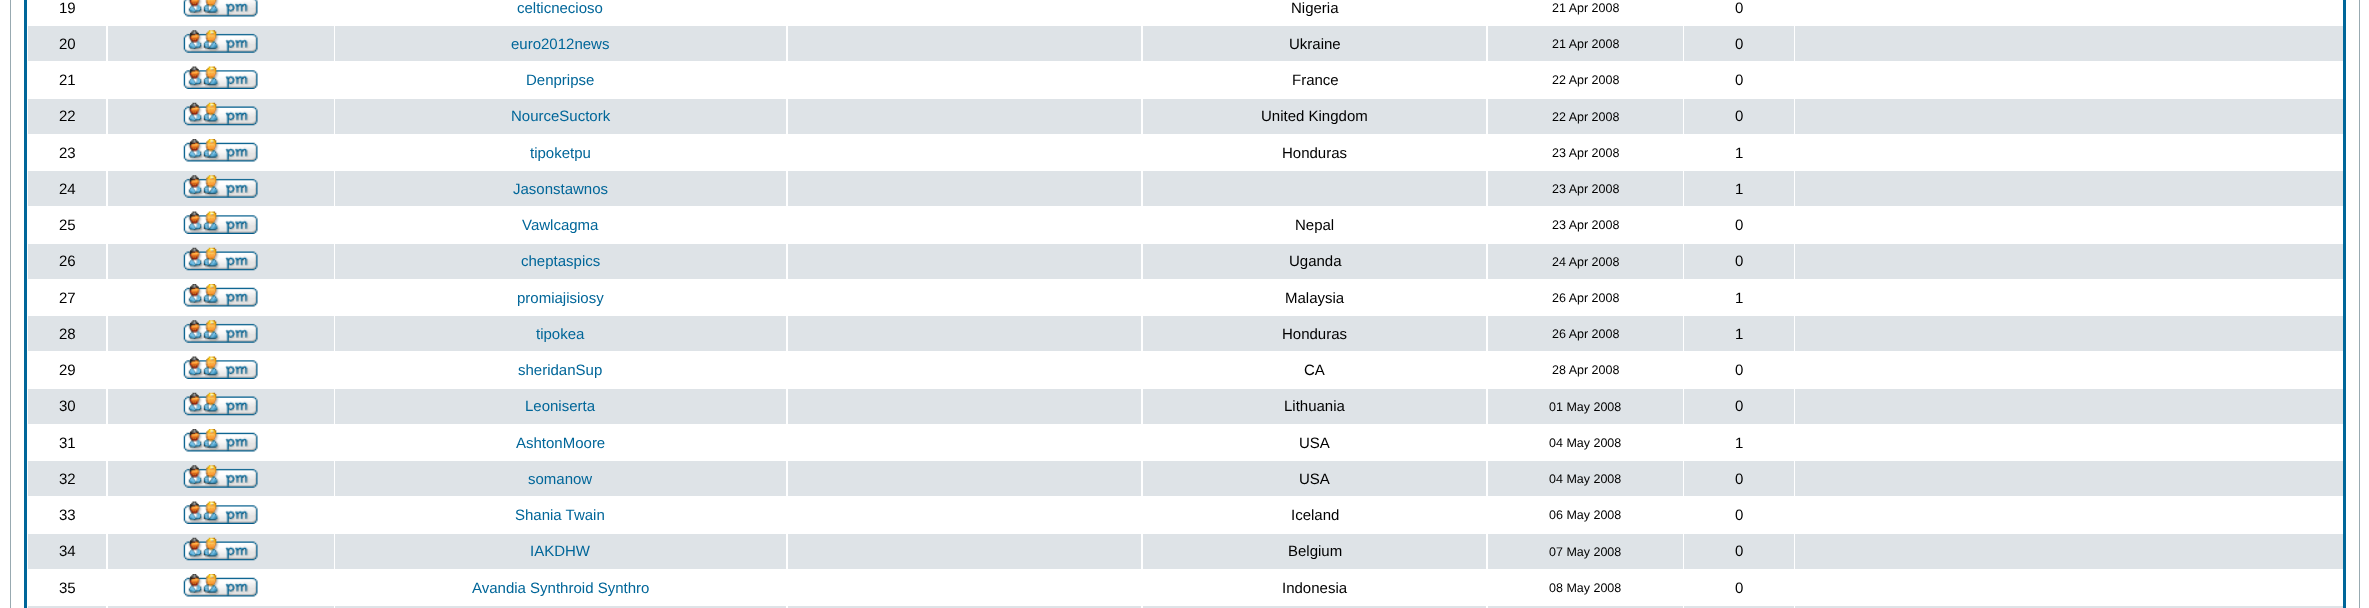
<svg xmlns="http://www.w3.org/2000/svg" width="2369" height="608">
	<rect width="100%" height="100%" fill="#FFFFFF" />
	<rect x="10.5" y="-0.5" width="2349" height="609" fill="none" stroke="#98AAB1" />
	<rect x="25.5" y="-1.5" width="2319" height="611" fill="none" stroke="#006699" stroke-width="3" />
	<text x="59" y="13" font-family="Liberation Sans" font-size="15" fill="#000000">19</text>
	<image x="183" y="0" width="75" height="17" href="assets/img1.png" />
	<text x="517" y="13" font-family="Liberation Sans" font-size="15" fill="#006699">celticnecioso</text>
	<text x="1291" y="13" font-family="Liberation Sans" font-size="15" fill="#000000">Nigeria</text>
	<text x="1552" y="12" font-family="Liberation Sans" font-size="12.5" fill="#000000">21 Apr 2008</text>
	<text x="1735" y="13" font-family="Liberation Sans" font-size="15" fill="#000000">0</text>
	<rect x="28" y="26" width="78" height="35" fill="#DEE3E7" />
	<text x="59" y="49" font-family="Liberation Sans" font-size="15" fill="#000000">20</text>
	<rect x="108" y="26" width="226" height="35" fill="#DEE3E7" />
	<image x="183" y="30" width="75" height="23" href="assets/img2.png" />
	<rect x="335" y="26" width="451" height="35" fill="#DEE3E7" />
	<text x="511" y="49" font-family="Liberation Sans" font-size="15" fill="#006699">euro2012news</text>
	<rect x="788" y="26" width="353" height="35" fill="#DEE3E7" />
	<rect x="1143" y="26" width="343" height="35" fill="#DEE3E7" />
	<text x="1289" y="49" font-family="Liberation Sans" font-size="15" fill="#000000">Ukraine</text>
	<rect x="1488" y="26" width="195" height="35" fill="#DEE3E7" />
	<text x="1552" y="48" font-family="Liberation Sans" font-size="12.5" fill="#000000">21 Apr 2008</text>
	<rect x="1684" y="26" width="110" height="35" fill="#DEE3E7" />
	<text x="1735" y="49" font-family="Liberation Sans" font-size="15" fill="#000000">0</text>
	<rect x="1795" y="26" width="548" height="35" fill="#DEE3E7" />
	<text x="59" y="85" font-family="Liberation Sans" font-size="15" fill="#000000">21</text>
	<image x="183" y="66" width="75" height="23" href="assets/img3.png" />
	<text x="526" y="85" font-family="Liberation Sans" font-size="15" fill="#006699">Denpripse</text>
	<text x="1292" y="85" font-family="Liberation Sans" font-size="15" fill="#000000">France</text>
	<text x="1552" y="84" font-family="Liberation Sans" font-size="12.5" fill="#000000">22 Apr 2008</text>
	<text x="1735" y="85" font-family="Liberation Sans" font-size="15" fill="#000000">0</text>
	<rect x="28" y="99" width="78" height="35" fill="#DEE3E7" />
	<text x="59" y="121" font-family="Liberation Sans" font-size="15" fill="#000000">22</text>
	<rect x="108" y="99" width="226" height="35" fill="#DEE3E7" />
	<image x="183" y="102" width="75" height="24" href="assets/img4.png" />
	<rect x="335" y="99" width="451" height="35" fill="#DEE3E7" />
	<text x="511" y="121" font-family="Liberation Sans" font-size="15" fill="#006699">NourceSuctork</text>
	<rect x="788" y="99" width="353" height="35" fill="#DEE3E7" />
	<rect x="1143" y="99" width="343" height="35" fill="#DEE3E7" />
	<text x="1261" y="121" font-family="Liberation Sans" font-size="15" fill="#000000">United Kingdom</text>
	<rect x="1488" y="99" width="195" height="35" fill="#DEE3E7" />
	<text x="1552" y="121" font-family="Liberation Sans" font-size="12.5" fill="#000000">22 Apr 2008</text>
	<rect x="1684" y="99" width="110" height="35" fill="#DEE3E7" />
	<text x="1735" y="121" font-family="Liberation Sans" font-size="15" fill="#000000">0</text>
	<rect x="1795" y="99" width="548" height="35" fill="#DEE3E7" />
	<text x="59" y="158" font-family="Liberation Sans" font-size="15" fill="#000000">23</text>
	<image x="183" y="139" width="75" height="23" href="assets/img5.png" />
	<text x="530" y="158" font-family="Liberation Sans" font-size="15" fill="#006699">tipoketpu</text>
	<text x="1282" y="158" font-family="Liberation Sans" font-size="15" fill="#000000">Honduras</text>
	<text x="1552" y="157" font-family="Liberation Sans" font-size="12.5" fill="#000000">23 Apr 2008</text>
	<text x="1735" y="158" font-family="Liberation Sans" font-size="15" fill="#000000">1</text>
	<rect x="28" y="171" width="78" height="35" fill="#DEE3E7" />
	<text x="59" y="194" font-family="Liberation Sans" font-size="15" fill="#000000">24</text>
	<rect x="108" y="171" width="226" height="35" fill="#DEE3E7" />
	<image x="183" y="175" width="75" height="23" href="assets/img2.png" />
	<rect x="335" y="171" width="451" height="35" fill="#DEE3E7" />
	<text x="513" y="194" font-family="Liberation Sans" font-size="15" fill="#006699">Jasonstawnos</text>
	<rect x="788" y="171" width="353" height="35" fill="#DEE3E7" />
	<rect x="1143" y="171" width="343" height="35" fill="#DEE3E7" />
	<rect x="1488" y="171" width="195" height="35" fill="#DEE3E7" />
	<text x="1552" y="193" font-family="Liberation Sans" font-size="12.5" fill="#000000">23 Apr 2008</text>
	<rect x="1684" y="171" width="110" height="35" fill="#DEE3E7" />
	<text x="1735" y="194" font-family="Liberation Sans" font-size="15" fill="#000000">1</text>
	<rect x="1795" y="171" width="548" height="35" fill="#DEE3E7" />
	<text x="59" y="230" font-family="Liberation Sans" font-size="15" fill="#000000">25</text>
	<image x="183" y="211" width="75" height="23" href="assets/img3.png" />
	<text x="522" y="230" font-family="Liberation Sans" font-size="15" fill="#006699">Vawlcagma</text>
	<text x="1295" y="230" font-family="Liberation Sans" font-size="15" fill="#000000">Nepal</text>
	<text x="1552" y="229" font-family="Liberation Sans" font-size="12.5" fill="#000000">23 Apr 2008</text>
	<text x="1735" y="230" font-family="Liberation Sans" font-size="15" fill="#000000">0</text>
	<rect x="28" y="244" width="78" height="35" fill="#DEE3E7" />
	<text x="59" y="266" font-family="Liberation Sans" font-size="15" fill="#000000">26</text>
	<rect x="108" y="244" width="226" height="35" fill="#DEE3E7" />
	<image x="183" y="247" width="75" height="24" href="assets/img4.png" />
	<rect x="335" y="244" width="451" height="35" fill="#DEE3E7" />
	<text x="521" y="266" font-family="Liberation Sans" font-size="15" fill="#006699">cheptaspics</text>
	<rect x="788" y="244" width="353" height="35" fill="#DEE3E7" />
	<rect x="1143" y="244" width="343" height="35" fill="#DEE3E7" />
	<text x="1289" y="266" font-family="Liberation Sans" font-size="15" fill="#000000">Uganda</text>
	<rect x="1488" y="244" width="195" height="35" fill="#DEE3E7" />
	<text x="1552" y="266" font-family="Liberation Sans" font-size="12.5" fill="#000000">24 Apr 2008</text>
	<rect x="1684" y="244" width="110" height="35" fill="#DEE3E7" />
	<text x="1735" y="266" font-family="Liberation Sans" font-size="15" fill="#000000">0</text>
	<rect x="1795" y="244" width="548" height="35" fill="#DEE3E7" />
	<text x="59" y="303" font-family="Liberation Sans" font-size="15" fill="#000000">27</text>
	<image x="183" y="284" width="75" height="23" href="assets/img5.png" />
	<text x="517" y="303" font-family="Liberation Sans" font-size="15" fill="#006699">promiajisiosy</text>
	<text x="1285" y="303" font-family="Liberation Sans" font-size="15" fill="#000000">Malaysia</text>
	<text x="1552" y="302" font-family="Liberation Sans" font-size="12.5" fill="#000000">26 Apr 2008</text>
	<text x="1735" y="303" font-family="Liberation Sans" font-size="15" fill="#000000">1</text>
	<rect x="28" y="316" width="78" height="35" fill="#DEE3E7" />
	<text x="59" y="339" font-family="Liberation Sans" font-size="15" fill="#000000">28</text>
	<rect x="108" y="316" width="226" height="35" fill="#DEE3E7" />
	<image x="183" y="320" width="75" height="23" href="assets/img2.png" />
	<rect x="335" y="316" width="451" height="35" fill="#DEE3E7" />
	<text x="536" y="339" font-family="Liberation Sans" font-size="15" fill="#006699">tipokea</text>
	<rect x="788" y="316" width="353" height="35" fill="#DEE3E7" />
	<rect x="1143" y="316" width="343" height="35" fill="#DEE3E7" />
	<text x="1282" y="339" font-family="Liberation Sans" font-size="15" fill="#000000">Honduras</text>
	<rect x="1488" y="316" width="195" height="35" fill="#DEE3E7" />
	<text x="1552" y="338" font-family="Liberation Sans" font-size="12.5" fill="#000000">26 Apr 2008</text>
	<rect x="1684" y="316" width="110" height="35" fill="#DEE3E7" />
	<text x="1735" y="339" font-family="Liberation Sans" font-size="15" fill="#000000">1</text>
	<rect x="1795" y="316" width="548" height="35" fill="#DEE3E7" />
	<text x="59" y="375" font-family="Liberation Sans" font-size="15" fill="#000000">29</text>
	<image x="183" y="356" width="75" height="23" href="assets/img3.png" />
	<text x="518" y="375" font-family="Liberation Sans" font-size="15" fill="#006699">sheridanSup</text>
	<text x="1304" y="375" font-family="Liberation Sans" font-size="15" fill="#000000">CA</text>
	<text x="1552" y="374" font-family="Liberation Sans" font-size="12.5" fill="#000000">28 Apr 2008</text>
	<text x="1735" y="375" font-family="Liberation Sans" font-size="15" fill="#000000">0</text>
	<rect x="28" y="389" width="78" height="35" fill="#DEE3E7" />
	<text x="59" y="411" font-family="Liberation Sans" font-size="15" fill="#000000">30</text>
	<rect x="108" y="389" width="226" height="35" fill="#DEE3E7" />
	<image x="183" y="392" width="75" height="24" href="assets/img4.png" />
	<rect x="335" y="389" width="451" height="35" fill="#DEE3E7" />
	<text x="525" y="411" font-family="Liberation Sans" font-size="15" fill="#006699">Leoniserta</text>
	<rect x="788" y="389" width="353" height="35" fill="#DEE3E7" />
	<rect x="1143" y="389" width="343" height="35" fill="#DEE3E7" />
	<text x="1284" y="411" font-family="Liberation Sans" font-size="15" fill="#000000">Lithuania</text>
	<rect x="1488" y="389" width="195" height="35" fill="#DEE3E7" />
	<text x="1549" y="411" font-family="Liberation Sans" font-size="12.5" fill="#000000">01 May 2008</text>
	<rect x="1684" y="389" width="110" height="35" fill="#DEE3E7" />
	<text x="1735" y="411" font-family="Liberation Sans" font-size="15" fill="#000000">0</text>
	<rect x="1795" y="389" width="548" height="35" fill="#DEE3E7" />
	<text x="59" y="448" font-family="Liberation Sans" font-size="15" fill="#000000">31</text>
	<image x="183" y="429" width="75" height="23" href="assets/img5.png" />
	<text x="516" y="448" font-family="Liberation Sans" font-size="15" fill="#006699">AshtonMoore</text>
	<text x="1299" y="448" font-family="Liberation Sans" font-size="15" fill="#000000">USA</text>
	<text x="1549" y="447" font-family="Liberation Sans" font-size="12.5" fill="#000000">04 May 2008</text>
	<text x="1735" y="448" font-family="Liberation Sans" font-size="15" fill="#000000">1</text>
	<rect x="28" y="461" width="78" height="35" fill="#DEE3E7" />
	<text x="59" y="484" font-family="Liberation Sans" font-size="15" fill="#000000">32</text>
	<rect x="108" y="461" width="226" height="35" fill="#DEE3E7" />
	<image x="183" y="465" width="75" height="23" href="assets/img2.png" />
	<rect x="335" y="461" width="451" height="35" fill="#DEE3E7" />
	<text x="528" y="484" font-family="Liberation Sans" font-size="15" fill="#006699">somanow</text>
	<rect x="788" y="461" width="353" height="35" fill="#DEE3E7" />
	<rect x="1143" y="461" width="343" height="35" fill="#DEE3E7" />
	<text x="1299" y="484" font-family="Liberation Sans" font-size="15" fill="#000000">USA</text>
	<rect x="1488" y="461" width="195" height="35" fill="#DEE3E7" />
	<text x="1549" y="483" font-family="Liberation Sans" font-size="12.5" fill="#000000">04 May 2008</text>
	<rect x="1684" y="461" width="110" height="35" fill="#DEE3E7" />
	<text x="1735" y="484" font-family="Liberation Sans" font-size="15" fill="#000000">0</text>
	<rect x="1795" y="461" width="548" height="35" fill="#DEE3E7" />
	<text x="59" y="520" font-family="Liberation Sans" font-size="15" fill="#000000">33</text>
	<image x="183" y="501" width="75" height="23" href="assets/img3.png" />
	<text x="515" y="520" font-family="Liberation Sans" font-size="15" fill="#006699">Shania Twain</text>
	<text x="1291" y="520" font-family="Liberation Sans" font-size="15" fill="#000000">Iceland</text>
	<text x="1549" y="519" font-family="Liberation Sans" font-size="12.5" fill="#000000">06 May 2008</text>
	<text x="1735" y="520" font-family="Liberation Sans" font-size="15" fill="#000000">0</text>
	<rect x="28" y="534" width="78" height="35" fill="#DEE3E7" />
	<text x="59" y="556" font-family="Liberation Sans" font-size="15" fill="#000000">34</text>
	<rect x="108" y="534" width="226" height="35" fill="#DEE3E7" />
	<image x="183" y="537" width="75" height="24" href="assets/img4.png" />
	<rect x="335" y="534" width="451" height="35" fill="#DEE3E7" />
	<text x="530" y="556" font-family="Liberation Sans" font-size="15" fill="#006699">IAKDHW</text>
	<rect x="788" y="534" width="353" height="35" fill="#DEE3E7" />
	<rect x="1143" y="534" width="343" height="35" fill="#DEE3E7" />
	<text x="1288" y="556" font-family="Liberation Sans" font-size="15" fill="#000000">Belgium</text>
	<rect x="1488" y="534" width="195" height="35" fill="#DEE3E7" />
	<text x="1549" y="556" font-family="Liberation Sans" font-size="12.5" fill="#000000">07 May 2008</text>
	<rect x="1684" y="534" width="110" height="35" fill="#DEE3E7" />
	<text x="1735" y="556" font-family="Liberation Sans" font-size="15" fill="#000000">0</text>
	<rect x="1795" y="534" width="548" height="35" fill="#DEE3E7" />
	<text x="59" y="593" font-family="Liberation Sans" font-size="15" fill="#000000">35</text>
	<image x="183" y="574" width="75" height="23" href="assets/img5.png" />
	<text x="472" y="593" font-family="Liberation Sans" font-size="15" fill="#006699">Avandia Synthroid Synthro</text>
	<text x="1282" y="593" font-family="Liberation Sans" font-size="15" fill="#000000">Indonesia</text>
	<text x="1549" y="592" font-family="Liberation Sans" font-size="12.5" fill="#000000">08 May 2008</text>
	<text x="1735" y="593" font-family="Liberation Sans" font-size="15" fill="#000000">0</text>
	<rect x="28" y="606" width="78" height="2" fill="#DEE3E7" />
	<rect x="108" y="606" width="226" height="2" fill="#DEE3E7" />
	<rect x="335" y="606" width="451" height="2" fill="#DEE3E7" />
	<rect x="788" y="606" width="353" height="2" fill="#DEE3E7" />
	<rect x="1143" y="606" width="343" height="2" fill="#DEE3E7" />
	<rect x="1488" y="606" width="195" height="2" fill="#DEE3E7" />
	<rect x="1684" y="606" width="110" height="2" fill="#DEE3E7" />
	<rect x="1795" y="606" width="548" height="2" fill="#DEE3E7" />
</svg>
